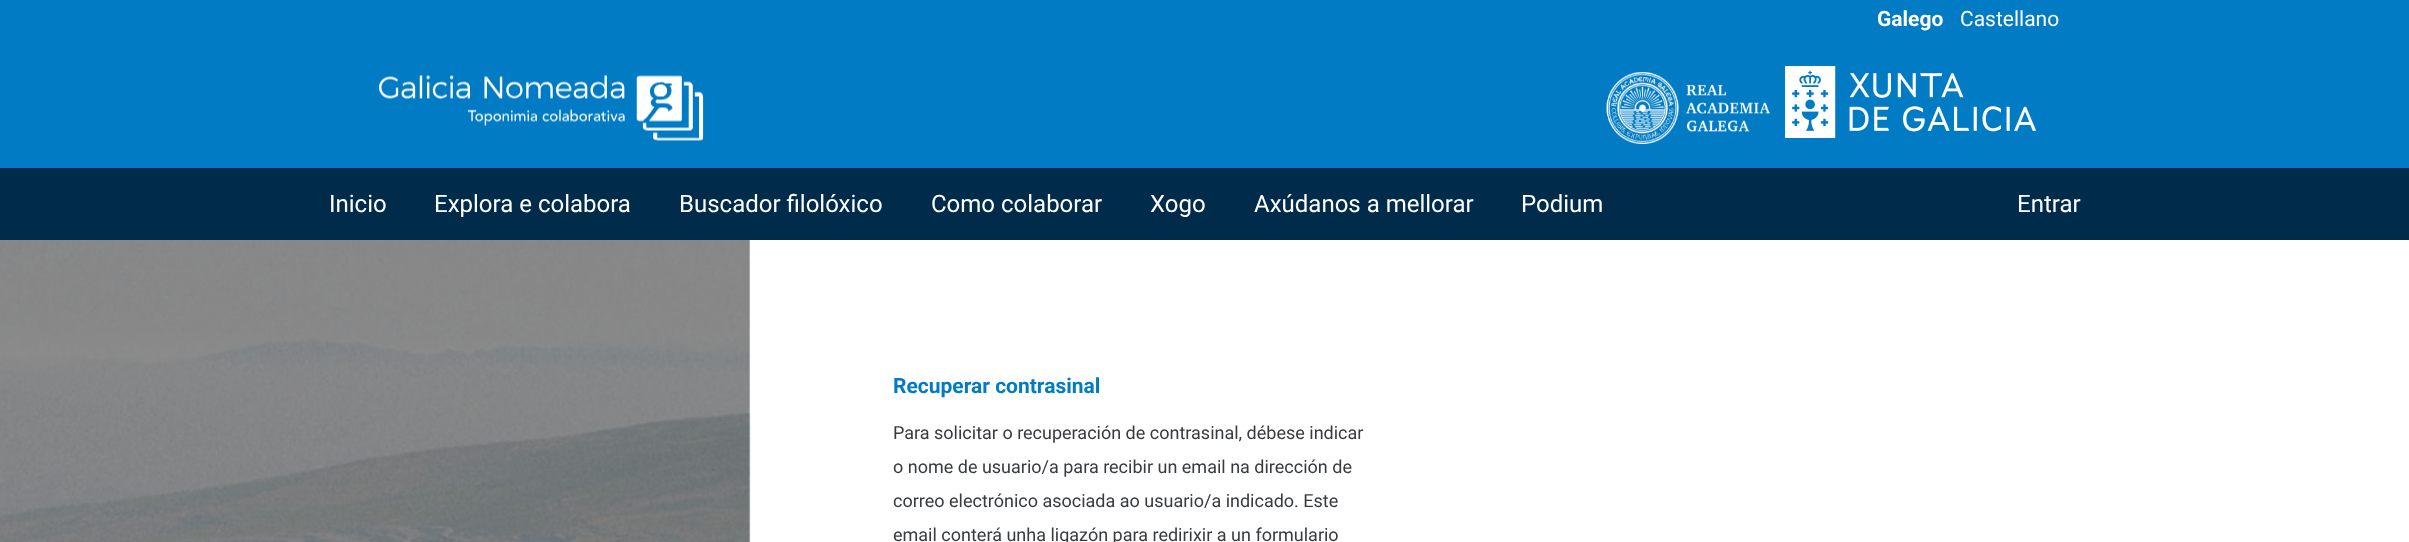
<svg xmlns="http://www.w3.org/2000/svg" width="2409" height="542">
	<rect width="100%" height="100%" fill="#FFFFFF" />
	<rect x="0" y="0" width="2409" height="168" fill="#007BC4" />
	<text x="1877" y="26" font-family="Roboto" font-size="21" font-weight="700" fill="#FFFFFF">Galego</text>
	<text x="1960" y="26" font-family="Roboto" font-size="21" fill="#FFFFFF">Castellano</text>
	<image x="379" y="75" width="325" height="66" href="assets/img1.png" />
	<image x="1606" y="72" width="164" height="72" href="assets/img2.png" />
	<image x="1785" y="66" width="252" height="72" href="assets/img3.png" />
	<rect x="0" y="168" width="2409" height="72" fill="#002B4A" />
	<g font-family="Roboto" font-size="24" fill="#FFFFFF">
		<text x="329" y="212">Inicio</text>
		<text x="434" y="212">Explora e colabora</text>
		<text x="679" y="212">Buscador filolóxico</text>
		<text x="931" y="212">Como colaborar</text>
		<text x="1150" y="212">Xogo</text>
		<text x="1254" y="212">Axúdanos a mellorar</text>
		<text x="1521" y="212">Podium</text>
		<text x="2017" y="212">Entrar</text>
	</g>
	<image x="0" y="240" width="751" height="302" href="assets/img4.png" />
	<text x="893" y="393" font-family="Roboto" font-size="21" font-weight="700" fill="#007BC4">Recuperar contrasinal</text>
	<g font-family="Roboto" font-size="18" fill="#373A3F">
		<text x="893" y="439">Para solicitar o recuperación de contrasinal, débese indicar</text>
		<text x="893" y="473">o nome de usuario/a para recibir un email na dirección de</text>
		<text x="893" y="507">correo electrónico asociada ao usuario/a indicado. Este</text>
		<text x="893" y="541">email conterá unha ligazón para redirixir a un formulario</text>
	</g>
</svg>
